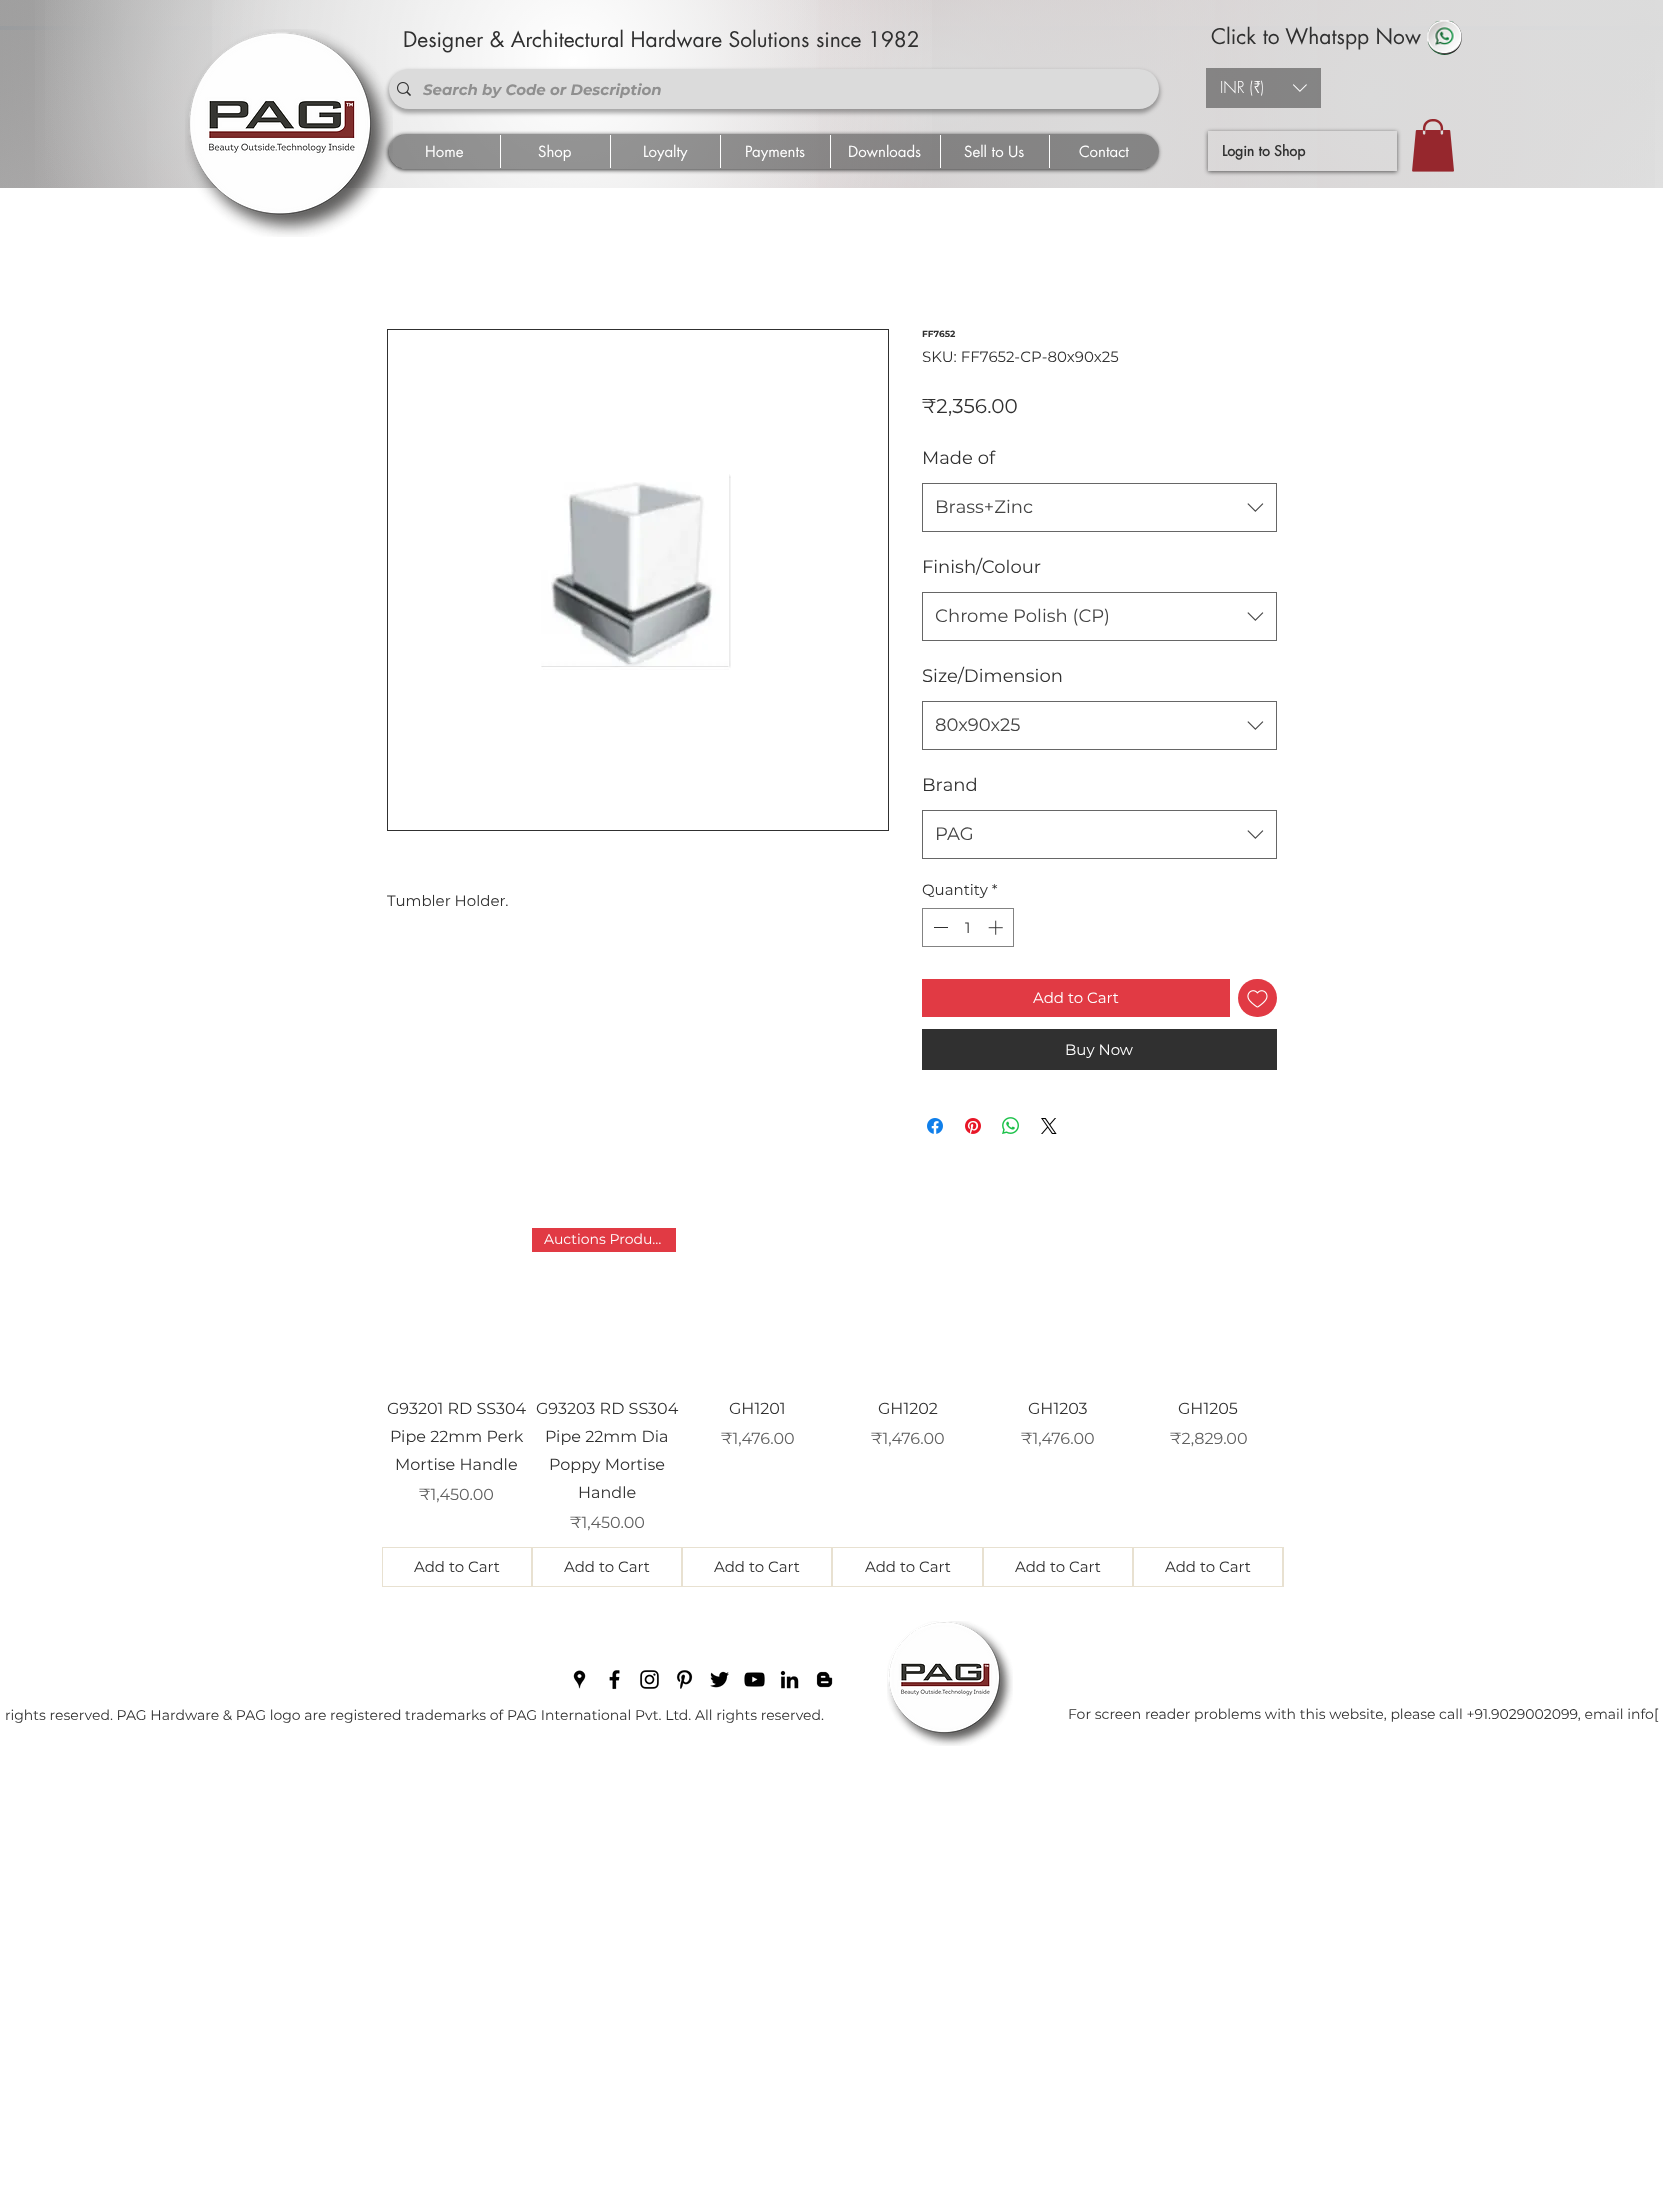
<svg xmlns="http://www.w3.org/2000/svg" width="1663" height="2186">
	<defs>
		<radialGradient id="g1" gradientUnits="userSpaceOnUse" cx="813" cy="93" r="855"><stop offset="0" stop-color="#96272D" /><stop offset="1" stop-color="#96272D" stop-opacity="0" /></radialGradient>
		<radialGradient id="g2" gradientUnits="userSpaceOnUse" cx="1641" cy="29" r="1648"><stop offset="0" stop-color="#DBDBDB" /><stop offset="0.7" stop-color="#DBDBDB" stop-opacity="0" /></radialGradient>
		<radialGradient id="g3" gradientUnits="userSpaceOnUse" cx="103" cy="24" r="1569"><stop offset="0" stop-color="#8F8F8F" /><stop offset="0.7" stop-color="#8F8F8F" stop-opacity="0" /></radialGradient>
		<radialGradient id="g4" gradientUnits="userSpaceOnUse" cx="515" cy="74" r="1154"><stop offset="0" stop-color="#DBDBDB" stop-opacity="0.99" /><stop offset="0.5" stop-color="#DBDBDB" stop-opacity="0" /></radialGradient>
		<radialGradient id="g5" gradientUnits="userSpaceOnUse" cx="1372" cy="96" r="1375"><stop offset="0" stop-color="#DBDBDB" /><stop offset="0.35" stop-color="#DBDBDB" stop-opacity="0" /></radialGradient>
		<radialGradient id="g6" gradientUnits="userSpaceOnUse" cx="946" cy="94" r="951"><stop offset="0" stop-color="#DBDBDB" /><stop offset="0.35" stop-color="#DBDBDB" stop-opacity="0" /></radialGradient>
		<radialGradient id="g7" gradientUnits="userSpaceOnUse" cx="1102" cy="151" r="1112"><stop offset="0" stop-color="#DBDBDB" /><stop offset="0.35" stop-color="#DBDBDB" stop-opacity="0" /></radialGradient>
		<radialGradient id="g8" gradientUnits="userSpaceOnUse" cx="530" cy="165" r="1145"><stop offset="0" stop-color="#DBDBDB" /><stop offset="0.35" stop-color="#DBDBDB" stop-opacity="0" /></radialGradient>
		<radialGradient id="g9" gradientUnits="userSpaceOnUse" cx="443" cy="85" r="1224"><stop offset="0" stop-color="#DBDBDB" /><stop offset="0.35" stop-color="#DBDBDB" stop-opacity="0" /></radialGradient>
		<radialGradient id="g10" gradientUnits="userSpaceOnUse" cx="452" cy="59" r="1218"><stop offset="0" stop-color="#DBDBDB" /><stop offset="0.35" stop-color="#DBDBDB" stop-opacity="0" /></radialGradient>
		<radialGradient id="g11" gradientUnits="userSpaceOnUse" cx="573" cy="61" r="1097"><stop offset="0" stop-color="#FFFFFF" /><stop offset="0.35" stop-color="#FFFFFF" stop-opacity="0" /></radialGradient>
		<clipPath id="clip1"><path d="M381 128H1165V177H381ZM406.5 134H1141.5C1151 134 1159 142 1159 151.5C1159 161 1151 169 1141.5 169H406.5C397 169 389 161 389 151.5C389 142 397 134 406.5 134Z" clip-rule="evenodd" /></clipPath>
		<clipPath id="clip2"><path d="M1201 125H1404V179H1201ZM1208 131H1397V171H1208Z" clip-rule="evenodd" /></clipPath>
		<clipPath id="clip3"><rect x="382" y="1228" width="902" height="359" /></clipPath>
	</defs>
	<rect width="100%" height="100%" fill="#FFFFFF" />
	<rect x="0" y="26" width="1663" height="4" fill="#AFD7FA" />
	<rect x="0" y="0" width="1646" height="188" fill="url(#g1)" />
	<rect x="514" y="0" width="1149" height="188" fill="url(#g2)" />
	<rect x="0" y="0" width="1157" height="188" fill="url(#g3)" />
	<rect x="0" y="0" width="1067" height="188" fill="url(#g4)" />
	<rect x="912" y="0" width="743" height="188" fill="url(#g5)" />
	<rect x="640" y="0" width="575" height="188" fill="url(#g6)" />
	<rect x="741" y="0" width="576" height="188" fill="url(#g7)" />
	<rect x="147" y="0" width="723" height="188" fill="url(#g8)" />
	<rect x="35" y="0" width="781" height="188" fill="url(#g9)" />
	<rect x="45" y="0" width="774" height="188" fill="url(#g10)" />
	<rect x="212" y="0" width="720" height="188" fill="url(#g11)" />
	<image x="185" y="29" width="208" height="208" href="assets/img1.png" />
	<g font-family="futura" font-size="21" fill="#303030">
		<text x="403" y="47">Designer &amp; Architectural Hardware Solutions since 1982</text>
		<text x="1211" y="44">Click to Whatspp Now</text>
	</g>
	<image x="1427" y="20" width="35" height="35" href="assets/img2.png" />
	<rect x="388" y="71" width="772" height="42" rx="21" fill="#000000" fill-opacity="0.33" filter="blur(2px)" />
	<rect x="389" y="69" width="770" height="40" rx="20" fill="#DBDBDB" />
	<image x="397" y="82" width="14" height="14" href="assets/img3.png" />
	<text x="423" y="95" font-family="Montserrat" font-size="15" font-weight="700" font-style="italic" fill="#8F8F8F">Search by Code or Description</text>
	<rect x="1206" y="68" width="115" height="40" fill="#303030" fill-opacity="0.5" />
	<text x="1220" y="93" font-family="futura" font-size="16" font-weight="300" fill="#FFFFFF">INR (₹)</text>
	<image x="1293" y="84" width="14" height="8" href="assets/img4.png" />
	<g clip-path="url(#clip1)">
		<rect x="388" y="135" width="770" height="35" rx="17.5" fill="#303030" filter="blur(2px)" />
	</g>
	<rect x="389" y="134" width="770" height="35" rx="17.5" fill="#303030" fill-opacity="0.5" />
	<text x="425" y="157" font-family="futura" font-size="15" fill="#FFFFFF">Home</text>
	<rect x="500" y="135" width="1" height="33" fill="#FFFFFF" />
	<text x="538" y="157" font-family="futura" font-size="15" fill="#FFFFFF">Shop</text>
	<rect x="610" y="135" width="1" height="33" fill="#FFFFFF" />
	<text x="643" y="157" font-family="futura" font-size="15" fill="#FFFFFF">Loyalty</text>
	<rect x="720" y="135" width="1" height="33" fill="#FFFFFF" />
	<text x="745" y="157" font-family="futura" font-size="15" fill="#FFFFFF">Payments</text>
	<rect x="830" y="135" width="1" height="33" fill="#FFFFFF" />
	<text x="848" y="157" font-family="futura" font-size="15" fill="#FFFFFF">Downloads</text>
	<rect x="940" y="135" width="1" height="33" fill="#FFFFFF" />
	<text x="964" y="157" font-family="futura" font-size="15" fill="#FFFFFF">Sell to Us</text>
	<rect x="1049" y="135" width="1" height="33" fill="#FFFFFF" />
	<text x="1079" y="157" font-family="futura" font-size="15" fill="#FFFFFF">Contact</text>
	<g clip-path="url(#clip2)">
		<rect x="1208" y="132" width="189" height="40" fill="#000000" fill-opacity="0.6" filter="blur(2px)" />
	</g>
	<text x="1222" y="156" font-family="futura" font-size="14" font-weight="700" fill="#303030">Login to Shop</text>
	<image x="1412" y="119" width="42" height="53" href="assets/img5.png" />
	<rect x="387.5" y="329.5" width="501" height="501" fill="none" stroke="#303030" />
	<image x="541" y="474" width="190" height="196" href="assets/img6.png" />
	<text x="387" y="906" font-family="Montserrat" font-size="15" fill="#303030">Tumbler Holder.</text>
	<text x="922" y="337" font-family="Montserrat" font-size="9" font-weight="700" fill="#303030">FF7652</text>
	<text x="922" y="362" font-family="Montserrat" font-size="15" fill="#303030">SKU: FF7652-CP-80x90x25</text>
	<text x="922" y="413" font-family="Montserrat" font-size="20" fill="#303030">₹2,356.00</text>
	<text x="922" y="464" font-family="Montserrat" font-size="18" fill="#303030">Made of</text>
	<rect x="922.5" y="483.5" width="354" height="48" fill="none" stroke="#666666" />
	<text x="935" y="513" font-family="Montserrat" font-size="18" fill="#444444">Brass+Zinc</text>
	<image x="1247" y="503" width="17" height="9" href="assets/img7.png" />
	<text x="922" y="573" font-family="Montserrat" font-size="18" fill="#303030">Finish/Colour</text>
	<rect x="922.5" y="592.5" width="354" height="48" fill="none" stroke="#666666" />
	<text x="935" y="622" font-family="Montserrat" font-size="18" fill="#444444">Chrome Polish (CP)</text>
	<image x="1247" y="612" width="17" height="9" href="assets/img7.png" />
	<text x="922" y="682" font-family="Montserrat" font-size="18" fill="#303030">Size/Dimension</text>
	<rect x="922.5" y="701.5" width="354" height="48" fill="none" stroke="#666666" />
	<text x="935" y="731" font-family="Montserrat" font-size="18" fill="#444444">80x90x25</text>
	<image x="1247" y="721" width="17" height="9" href="assets/img7.png" />
	<text x="922" y="791" font-family="Montserrat" font-size="18" fill="#303030">Brand</text>
	<rect x="922.5" y="810.5" width="354" height="48" fill="none" stroke="#666666" />
	<text x="935" y="840" font-family="Montserrat" font-size="18" fill="#444444">PAG</text>
	<image x="1247" y="830" width="17" height="9" href="assets/img7.png" />
	<text x="922" y="895" font-family="Montserrat" font-size="15" fill="#303030">Quantity *</text>
	<rect x="922.5" y="908.5" width="91" height="38" fill="none" stroke="#838383" />
	<rect x="934" y="927" width="14" height="1" fill="#303030" />
	<text x="965" y="933" font-family="Montserrat" font-size="15" fill="#303030">1</text>
	<image x="988" y="920" width="15" height="15" href="assets/img8.png" />
	<rect x="922" y="979" width="308" height="38" fill="#E13A44" />
	<text x="1033" y="1003" font-family="Montserrat" font-size="15" fill="#FFFFFF">Add to Cart</text>
	<rect x="1238" y="979" width="39" height="38" rx="19" fill="#E13A44" />
	<image x="1247" y="990" width="21" height="18" href="assets/img9.png" />
	<rect x="922" y="1029" width="355" height="41" fill="#303030" />
	<text x="1065" y="1055" font-family="Montserrat" font-size="15" fill="#FFFFFF">Buy Now</text>
	<image x="927" y="1118" width="16" height="16" href="assets/img10.png" />
	<image x="965" y="1118" width="16" height="16" href="assets/img11.png" />
	<image x="1002" y="1117" width="17" height="17" href="assets/img12.png" />
	<image x="1041" y="1118" width="16" height="16" href="assets/img13.png" />
	<g font-family="Montserrat" font-size="16" fill="#303030">
		<text x="387" y="1414">G93201 RD SS304</text>
		<text x="390" y="1442">Pipe 22mm Perk</text>
		<text x="395" y="1470">Mortise Handle</text>
	</g>
	<text x="419" y="1500" font-family="Montserrat" font-size="16" fill="#606060">₹1,450.00</text>
	<rect x="382.5" y="1547.5" width="149" height="39" fill="none" stroke="#E8E1D1" />
	<text x="414" y="1572" font-family="Montserrat" font-size="15" fill="#303030">Add to Cart</text>
	<rect x="532" y="1228" width="144" height="24" fill="#E13A44" />
	<text x="544" y="1244" font-family="Montserrat" font-size="14" fill="#FFFFFF">Auctions Produ…</text>
	<g font-family="Montserrat" font-size="16" fill="#303030">
		<text x="536" y="1414">G93203 RD SS304</text>
		<text x="545" y="1442">Pipe 22mm Dia</text>
		<text x="549" y="1470">Poppy Mortise</text>
		<text x="578" y="1498">Handle</text>
	</g>
	<text x="570" y="1528" font-family="Montserrat" font-size="16" fill="#606060">₹1,450.00</text>
	<rect x="532.5" y="1547.5" width="149" height="39" fill="none" stroke="#E8E1D1" />
	<text x="564" y="1572" font-family="Montserrat" font-size="15" fill="#303030">Add to Cart</text>
	<text x="729" y="1414" font-family="Montserrat" font-size="16" fill="#303030">GH1201</text>
	<text x="721" y="1444" font-family="Montserrat" font-size="16" fill="#606060">₹1,476.00</text>
	<rect x="682.5" y="1547.5" width="149" height="39" fill="none" stroke="#E8E1D1" />
	<text x="714" y="1572" font-family="Montserrat" font-size="15" fill="#303030">Add to Cart</text>
	<text x="878" y="1414" font-family="Montserrat" font-size="16" fill="#303030">GH1202</text>
	<text x="871" y="1444" font-family="Montserrat" font-size="16" fill="#606060">₹1,476.00</text>
	<rect x="832.5" y="1547.5" width="150" height="39" fill="none" stroke="#E8E1D1" />
	<text x="865" y="1572" font-family="Montserrat" font-size="15" fill="#303030">Add to Cart</text>
	<text x="1028" y="1414" font-family="Montserrat" font-size="16" fill="#303030">GH1203</text>
	<text x="1021" y="1444" font-family="Montserrat" font-size="16" fill="#606060">₹1,476.00</text>
	<rect x="983.5" y="1547.5" width="149" height="39" fill="none" stroke="#E8E1D1" />
	<text x="1015" y="1572" font-family="Montserrat" font-size="15" fill="#303030">Add to Cart</text>
	<text x="1178" y="1414" font-family="Montserrat" font-size="16" fill="#303030">GH1205</text>
	<text x="1170" y="1444" font-family="Montserrat" font-size="16" fill="#606060">₹2,829.00</text>
	<rect x="1133.5" y="1547.5" width="149" height="39" fill="none" stroke="#E8E1D1" />
	<text x="1165" y="1572" font-family="Montserrat" font-size="15" fill="#303030">Add to Cart</text>
	<g clip-path="url(#clip3)">
		<rect x="1283.5" y="1547.5" width="150" height="39" fill="none" stroke="#E8E1D1" />
	</g>
	<image x="573" y="1670" width="13" height="19" href="assets/img14.png" />
	<image x="609" y="1670" width="11" height="20" href="assets/img15.png" />
	<image x="640" y="1670" width="19" height="19" href="assets/img16.png" />
	<image x="676" y="1670" width="17" height="19" href="assets/img17.png" />
	<image x="710" y="1671" width="19" height="17" href="assets/img18.png" />
	<image x="744" y="1672" width="21" height="15" href="assets/img19.png" />
	<image x="780" y="1670" width="19" height="19" href="assets/img20.png" />
	<image x="816" y="1671" width="17" height="17" href="assets/img21.png" />
	<image x="887" y="1621" width="126" height="125" href="assets/img22.png" />
	<g font-family="Montserrat" font-size="14" fill="#303030">
		<text x="5" y="1720">rights reserved. PAG Hardware &amp; PAG logo are registered trademarks of PAG International Pvt. Ltd. All rights reserved.</text>
		<text x="1068" y="1719">For screen reader problems with this website, please call +91.9029002099, email info[</text>
	</g>
</svg>
